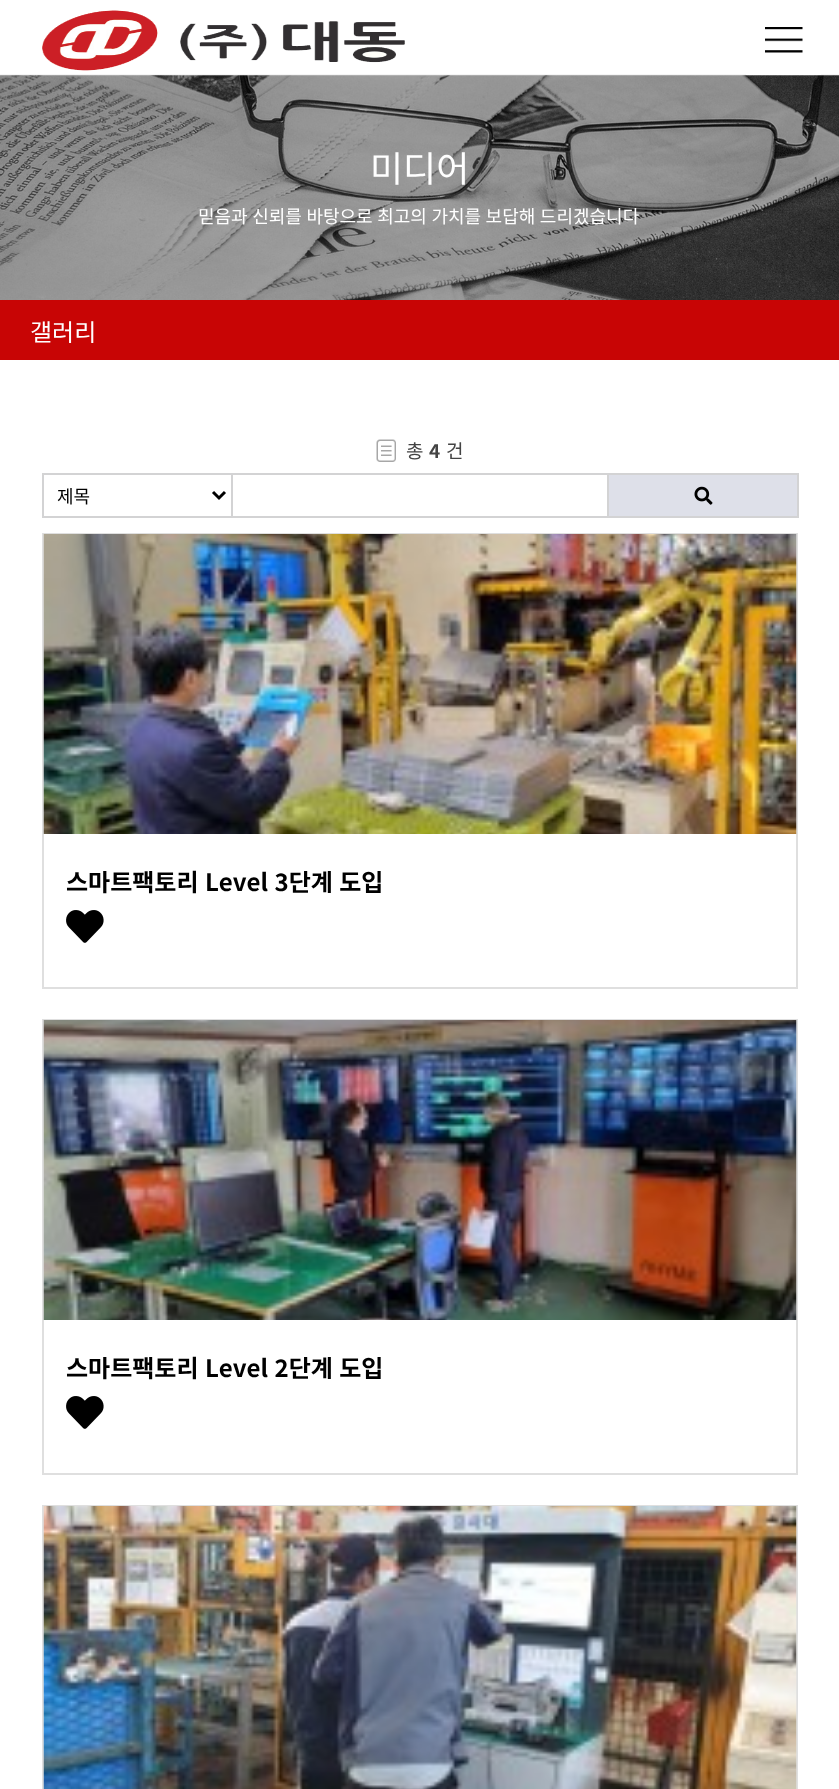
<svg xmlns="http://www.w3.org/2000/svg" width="839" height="1789">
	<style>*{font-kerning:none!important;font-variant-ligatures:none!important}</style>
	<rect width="100%" height="100%" fill="#FFFFFF" />
	<image x="0" y="75" width="839" height="225" href="assets/img3.png" />
	<rect x="0" y="74" width="839" height="2" fill="#DDDDDD" fill-opacity="0.3" />
	<image x="42" y="10" width="363" height="61" href="assets/img1.png" />
	<rect x="746" y="74" width="75" height="1" fill="#FFFFFF" />
	<image x="765" y="27" width="38" height="26" href="assets/img2.png" />
	<text x="370" y="182" font-family="Noto Sans KR" font-size="36" fill="#FFFFFF">미디어</text>
	<text x="198" y="223" word-spacing="0.5" font-family="Noto Sans KR" font-size="18" fill="#FFFFFF">믿음과 신뢰를 바탕으로 최고의 가치를 보답해 드리겠습니다</text>
	<rect x="0" y="300" width="839" height="60" fill="#C80505" />
	<text x="30" y="341" font-family="Noto Sans KR" font-size="24" fill="#FFFFFF">갤러리</text>
	<image x="376" y="439" width="20" height="23" href="assets/img4.png" />
	<text x="406" y="458" font-family="Noto Sans KR" font-size="19" fill="#444444">총</text>
	<text x="429" y="458" font-family="Noto Sans KR" font-size="19" font-weight="700" fill="#444444">4</text>
	<text x="446" y="458" font-family="Noto Sans KR" font-size="19" fill="#444444">건</text>
	<rect x="42" y="473" width="189" height="2" fill="#D3D3D4" />
	<rect x="42" y="516" width="189" height="2" fill="#D3D3D4" />
	<rect x="42" y="473" width="2" height="45" fill="#D3D3D4" />
	<path d="M213 492L219 498L225 492" fill="none" stroke="#000000" stroke-width="3" />
	<text x="57" y="503" font-family="Noto Sans KR" font-size="18" fill="#000000">제목</text>
	<rect x="232" y="474" width="376" height="43" fill="none" stroke="#D3D3D4" stroke-width="2" />
	<rect x="609" y="475" width="188" height="41" fill="#DEE0E9" />
	<rect x="609" y="473" width="189" height="2" fill="#D3D3D4" />
	<rect x="797" y="473" width="2" height="45" fill="#D3D3D4" />
	<rect x="609" y="516" width="189" height="2" fill="#D3D3D4" />
	<image x="694" y="486" width="19" height="19" href="assets/img5.png" />
	<rect x="43" y="534" width="754" height="454" fill="none" stroke="#DFDFDF" stroke-width="2" />
	<image x="43" y="534" width="754" height="300" href="assets/img6.png" />
	<text x="66" y="891" word-spacing="1" font-family="Noto Sans KR" font-size="24" font-weight="700" fill="#000000">스마트팩토리 Level 3단계 도입</text>
	<image x="66" y="910" width="38" height="33" href="assets/img7.png" />
	<rect x="43" y="1020" width="754" height="454" fill="none" stroke="#DFDFDF" stroke-width="2" />
	<image x="43" y="1020" width="754" height="300" href="assets/img8.png" />
	<text x="66" y="1377" word-spacing="1" font-family="Noto Sans KR" font-size="24" font-weight="700" fill="#000000">스마트팩토리 Level 2단계 도입</text>
	<image x="66" y="1396" width="38" height="33" href="assets/img7.png" />
	<rect x="43" y="1506" width="754" height="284" fill="none" stroke="#DFDFDF" stroke-width="2" />
	<image x="43" y="1506" width="754" height="283" href="assets/img9.png" />
</svg>
